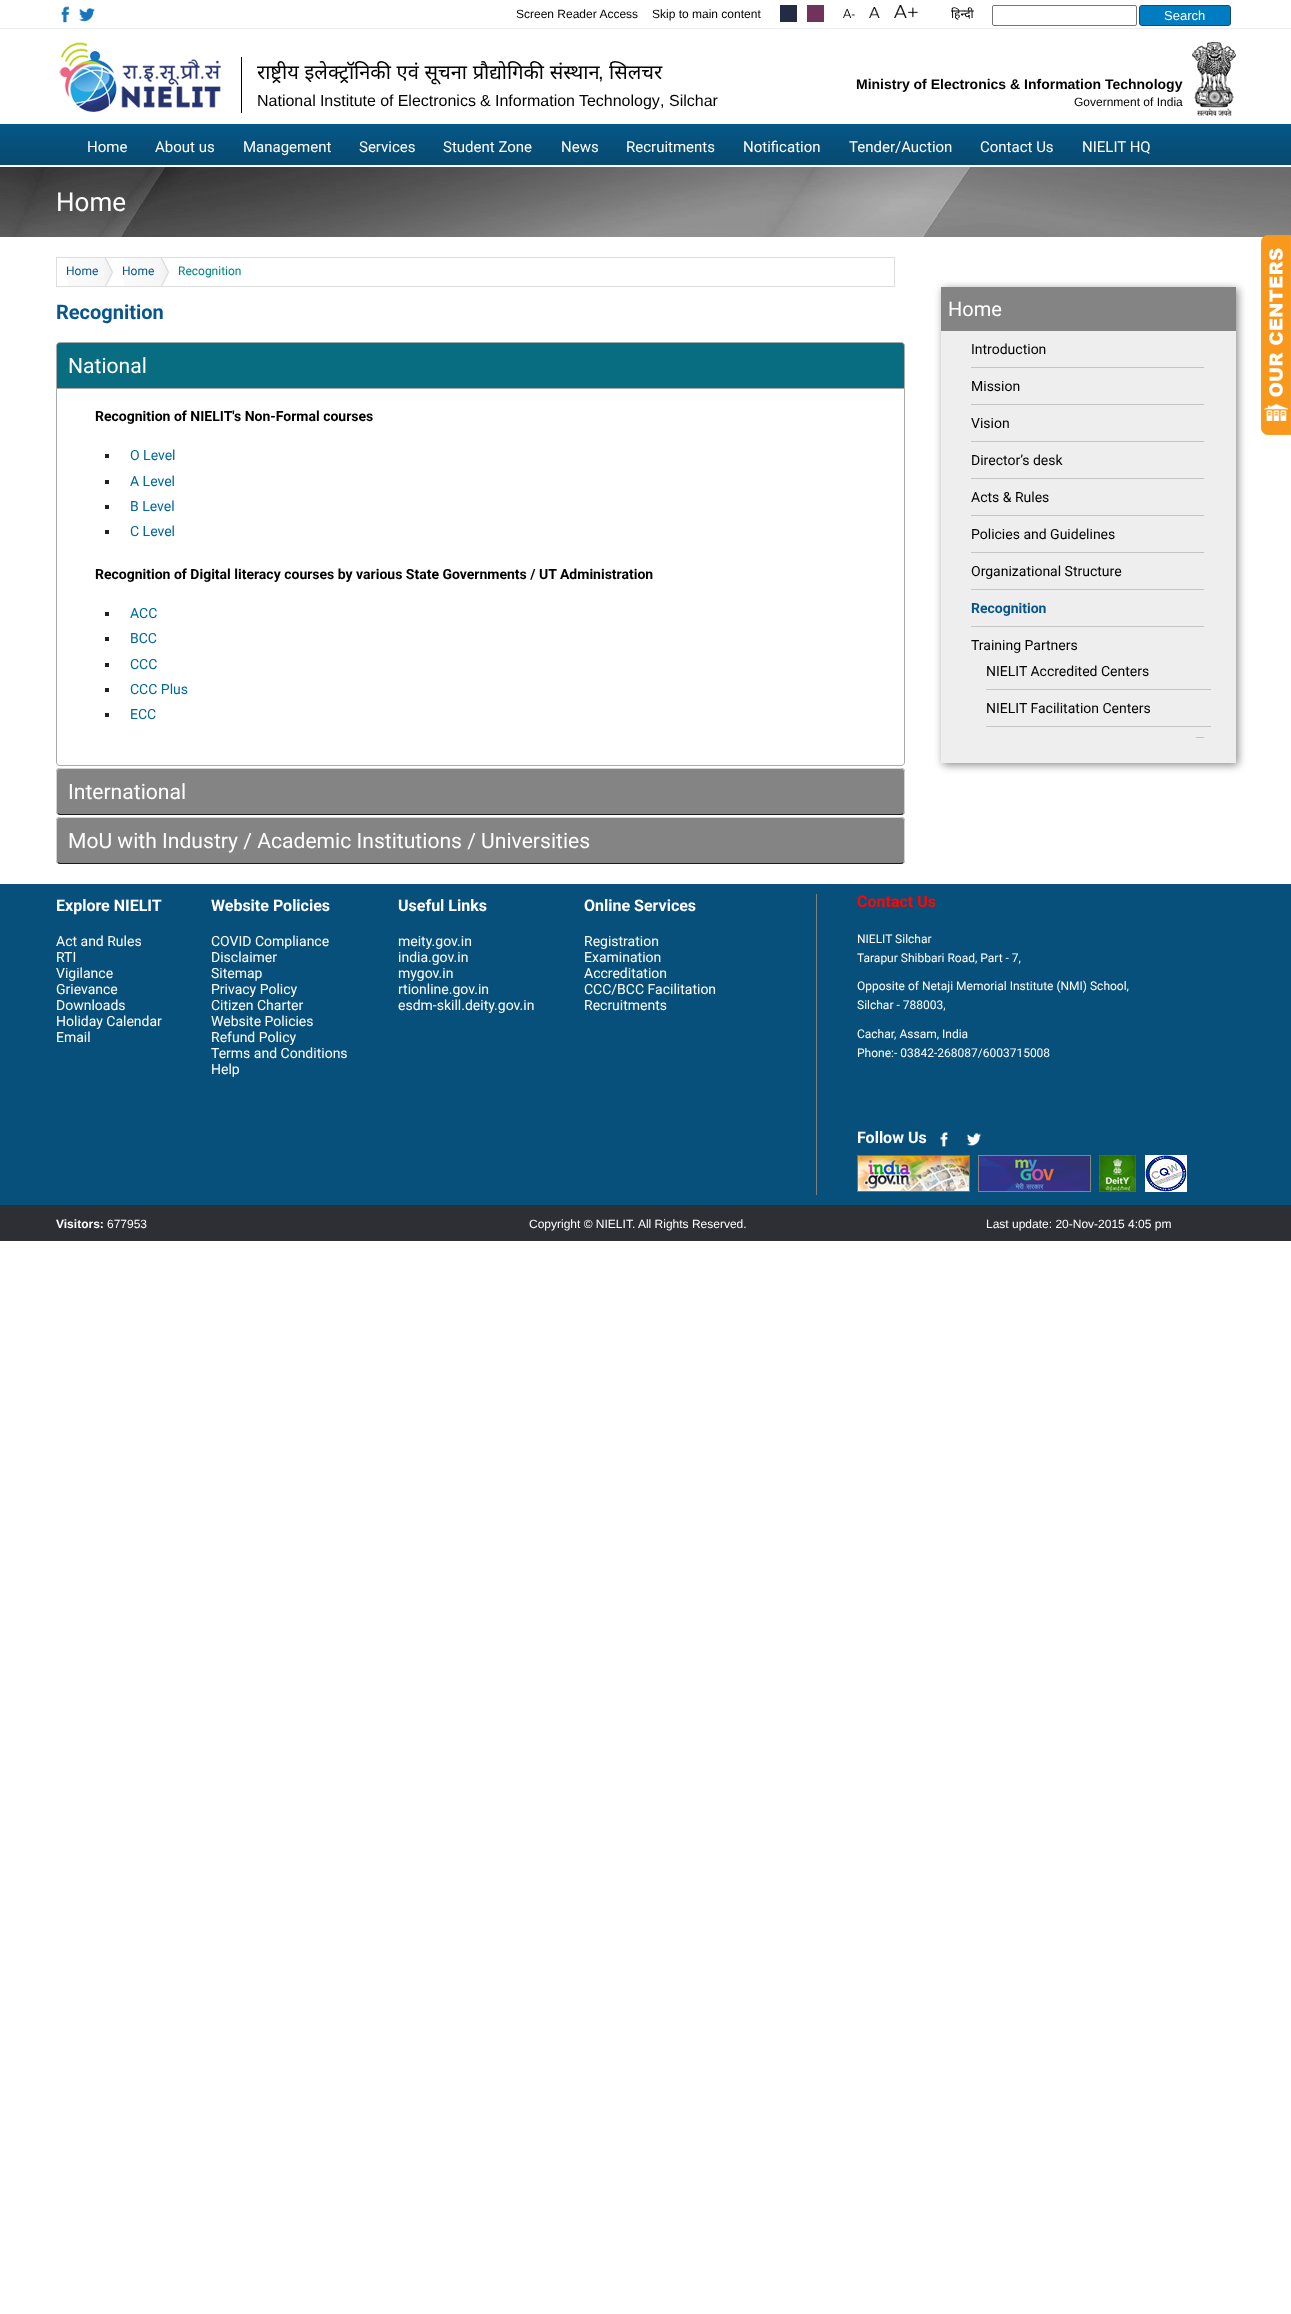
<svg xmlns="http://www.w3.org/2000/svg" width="1291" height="2314">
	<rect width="100%" height="100%" fill="#FFFFFF" />
	<rect x="0" y="28" width="1291" height="1" fill="#EDEDEE" />
	<image x="61" y="6" width="9" height="17" href="assets/img1.png" />
	<image x="79" y="8" width="16" height="14" href="assets/img2.png" />
	<g font-family="Liberation Sans" font-size="12" fill="#000000">
		<text x="516" y="18">Screen Reader Access</text>
		<text x="652" y="18">Skip to main content</text>
	</g>
	<rect x="780" y="5" width="17" height="17" fill="#232C44" />
	<rect x="807" y="5" width="17" height="17" fill="#70335C" />
	<image x="843" y="9" width="12" height="9" href="assets/img3.png" />
	<image x="869" y="7" width="11" height="11" href="assets/img4.png" />
	<image x="894" y="5" width="24" height="13" href="assets/img5.png" />
	<text x="951" y="18" font-family="Noto Sans" font-size="12" fill="#000000">हिन्दी</text>
	<rect x="992.5" y="5.5" width="144" height="20" rx="1.5" fill="none" stroke="#767676" />
	<rect x="1139.5" y="5.5" width="91" height="20" rx="2.5" fill="#007DC1" stroke="#124D77" />
	<text x="1164" y="20" font-family="Liberation Sans" font-size="13" fill="#FFFFFF">Search</text>
	<image x="59" y="42" width="162" height="70" href="assets/img6.png" />
	<rect x="241" y="57" width="1" height="56" fill="#000000" />
	<text x="257" y="79" word-spacing="0.5" font-family="Noto Sans" font-size="20" fill="#000000">राष्ट्रीय इलेक्ट्रॉनिकी एवं सूचना प्रौद्योगिकी संस्थान</text>
	<text x="598" y="79" font-family="Liberation Sans" font-size="20" fill="#000000">,</text>
	<text x="609" y="79" font-family="Noto Sans" font-size="20" fill="#000000">सिलचर</text>
	<g font-family="Liberation Sans" font-size="16" fill="#000000">
		<text x="257" y="106" word-spacing="-0.25">National Institute of Electronics &amp; Information Technology</text>
		<text x="660" y="106">,</text>
		<text x="669" y="106">Silchar</text>
	</g>
	<text x="856" y="89" font-family="Liberation Sans" font-size="14" font-weight="700" fill="#000000">Ministry of Electronics &amp; Information Technology</text>
	<text x="1074" y="106" font-family="Liberation Sans" font-size="12" fill="#000000">Government of India</text>
	<image x="1192" y="42" width="44" height="74" href="assets/img7.png" />
	<image x="0" y="124" width="1291" height="41" href="assets/img8.png" />
	<g font-family="Roboto" font-size="15" fill="#FFFFFF">
		<text x="87" y="152">Home</text>
		<text x="155" y="152">About us</text>
		<text x="243" y="152">Management</text>
		<text x="359" y="152">Services</text>
		<text x="443" y="152">Student Zone</text>
		<text x="561" y="152">News</text>
		<text x="626" y="152">Recruitments</text>
		<text x="743" y="152">Notification</text>
		<text x="849" y="152">Tender/Auction</text>
		<text x="980" y="152">Contact Us</text>
		<text x="1082" y="152">NIELIT HQ</text>
	</g>
	<image x="0" y="167" width="1291" height="70" href="assets/img9.png" />
	<text x="56" y="211" font-family="Roboto" font-size="26" fill="#FFFFFF">Home</text>
	<rect x="56.5" y="257.5" width="838" height="29" fill="none" stroke="#DEDEDE" />
	<image x="68" y="258" width="45" height="28" href="assets/img10.png" />
	<text x="66" y="275" font-family="Roboto" font-size="12" fill="#09568C">Home</text>
	<image x="124" y="258" width="45" height="28" href="assets/img10.png" />
	<text x="122" y="275" font-family="Roboto" font-size="12" fill="#09568C">Home</text>
	<text x="178" y="275" font-family="Roboto" font-size="12" fill="#008080">Recognition</text>
	<text x="56" y="319" font-family="Roboto" font-size="20" font-weight="700" fill="#09568C">Recognition</text>
	<path d="M60 342.5H901C903 342.5 904.5 344 904.5 346V388.5H56.5V346C56.5 344 58 342.5 60 342.5Z" fill="#086D80" stroke="#AAAAAA" />
	<text x="68" y="373" font-family="Roboto" font-size="21.1" fill="#FFFFFF">National</text>
	<path d="M56 389H905V762C905 764 903 766 901 766H60C58 766 56 764 56 762ZM57 389H904V762C904 764 903 765 901 765H60C58 765 57 764 57 762Z" fill="#AAAAAA" fill-rule="evenodd" />
	<text x="95" y="421" font-family="Roboto" font-size="14" font-weight="700" fill="#000000">Recognition of NIELIT's Non-Formal courses</text>
	<rect x="105" y="454" width="4" height="4" fill="#222222" />
	<text x="130" y="460" font-family="Roboto" font-size="14" fill="#006699">O Level</text>
	<rect x="105" y="480" width="4" height="4" fill="#222222" />
	<text x="130" y="486" font-family="Roboto" font-size="14" fill="#006699">A Level</text>
	<rect x="105" y="505" width="4" height="4" fill="#222222" />
	<text x="130" y="511" font-family="Roboto" font-size="14" fill="#006699">B Level</text>
	<rect x="105" y="530" width="4" height="4" fill="#222222" />
	<text x="130" y="536" font-family="Roboto" font-size="14" fill="#006699">C Level</text>
	<text x="95" y="579" font-family="Roboto" font-size="14" font-weight="700" fill="#000000">Recognition of Digital literacy courses by various State Governments / UT Administration</text>
	<rect x="105" y="612" width="4" height="4" fill="#222222" />
	<text x="130" y="618" font-family="Roboto" font-size="14" fill="#006699">ACC</text>
	<rect x="105" y="637" width="4" height="4" fill="#222222" />
	<text x="130" y="643" font-family="Roboto" font-size="14" fill="#006699">BCC</text>
	<rect x="105" y="663" width="4" height="4" fill="#222222" />
	<text x="130" y="669" font-family="Roboto" font-size="14" fill="#006699">CCC</text>
	<rect x="105" y="688" width="4" height="4" fill="#222222" />
	<text x="130" y="694" font-family="Roboto" font-size="14" fill="#006699">CCC Plus</text>
	<rect x="105" y="713" width="4" height="4" fill="#222222" />
	<text x="130" y="719" font-family="Roboto" font-size="14" fill="#006699">ECC</text>
	<rect x="56" y="768" width="849" height="47" rx="4" fill="#848484" />
	<path d="M903.5 813.5L901 814.5H60L57.5 813.5" fill="none" stroke="#1A1A1A" />
	<path d="M57.5 813.5C57 813 56.5 812 56.5 811V772C56.5 771 57 770 57.5 769.5C58 769 59 768.5 60 768.5H901C902 768.5 903 769 903.5 769.5C904 770 904.5 771 904.5 772V811C904.5 812 904 813 903.5 813.5" fill="none" stroke="#D3D3D3" />
	<text x="68" y="799" font-family="Roboto" font-size="21.1" fill="#FFFFFF">International</text>
	<rect x="56" y="817" width="849" height="47" rx="4" fill="#848484" />
	<path d="M903.5 862.5L901 863.5H60L57.5 862.5" fill="none" stroke="#1A1A1A" />
	<path d="M57.5 862.5C57 862 56.5 861 56.5 860V821C56.5 820 57 819 57.5 818.5C58 818 59 817.5 60 817.5H901C902 817.5 903 818 903.5 818.5C904 819 904.5 820 904.5 821V860C904.5 861 904 862 903.5 862.5" fill="none" stroke="#D3D3D3" />
	<text x="68" y="848" font-family="Roboto" font-size="21.1" fill="#FFFFFF">MoU with Industry / Academic Institutions / Universities</text>
	<rect x="943" y="289" width="295" height="476" fill="#888888" filter="blur(4px)" />
	<rect x="941" y="287" width="295" height="44" fill="#848484" />
	<text x="948" y="316" font-family="Roboto" font-size="20" fill="#FFFFFF">Home</text>
	<rect x="941" y="331" width="295" height="432" fill="#EEEEEE" />
	<rect x="971" y="367" width="233" height="1" fill="#C4C4C4" />
	<text x="971" y="354" font-family="Roboto" font-size="14" fill="#000000">Introduction</text>
	<rect x="971" y="404" width="233" height="1" fill="#C4C4C4" />
	<text x="971" y="391" font-family="Roboto" font-size="14" fill="#000000">Mission</text>
	<rect x="971" y="441" width="233" height="1" fill="#C4C4C4" />
	<text x="971" y="428" font-family="Roboto" font-size="14" fill="#000000">Vision</text>
	<rect x="971" y="478" width="233" height="1" fill="#C4C4C4" />
	<text x="971" y="465" font-family="Roboto" font-size="14" fill="#000000">Director’s desk</text>
	<rect x="971" y="515" width="233" height="1" fill="#C4C4C4" />
	<text x="971" y="502" font-family="Roboto" font-size="14" fill="#000000">Acts &amp; Rules</text>
	<rect x="971" y="552" width="233" height="1" fill="#C4C4C4" />
	<text x="971" y="539" font-family="Roboto" font-size="14" fill="#000000">Policies and Guidelines</text>
	<rect x="971" y="589" width="233" height="1" fill="#C4C4C4" />
	<text x="971" y="576" font-family="Roboto" font-size="14" fill="#000000">Organizational Structure</text>
	<rect x="971" y="626" width="233" height="1" fill="#C4C4C4" />
	<text x="971" y="613" font-family="Roboto" font-size="14" font-weight="700" fill="#09568C">Recognition</text>
	<rect x="1196" y="737" width="8" height="1" fill="#C4C4C4" />
	<text x="971" y="650" font-family="Roboto" font-size="14" fill="#000000">Training Partners</text>
	<rect x="986" y="689" width="225" height="1" fill="#C4C4C4" />
	<text x="986" y="676" font-family="Roboto" font-size="14" fill="#000000">NIELIT Accredited Centers</text>
	<rect x="986" y="726" width="225" height="1" fill="#C4C4C4" />
	<text x="986" y="713" font-family="Roboto" font-size="14" fill="#000000">NIELIT Facilitation Centers</text>
	<image x="1261" y="235" width="30" height="200" href="assets/img11.png" />
	<rect x="0" y="884" width="1291" height="321" fill="#07507B" />
	<text x="56" y="911" font-family="Roboto" font-size="16" font-weight="700" fill="#FFFFFF">Explore NIELIT</text>
	<g font-family="Roboto" font-size="14" fill="#FFFFFF">
		<text x="56" y="946">Act and Rules</text>
		<text x="56" y="962">RTI</text>
		<text x="56" y="978">Vigilance</text>
		<text x="56" y="994">Grievance</text>
		<text x="56" y="1010">Downloads</text>
		<text x="56" y="1026">Holiday Calendar</text>
		<text x="56" y="1042">Email</text>
	</g>
	<text x="211" y="911" font-family="Roboto" font-size="16" font-weight="700" fill="#FFFFFF">Website Policies</text>
	<g font-family="Roboto" font-size="14" fill="#FFFFFF">
		<text x="211" y="946">COVID Compliance</text>
		<text x="211" y="962">Disclaimer</text>
		<text x="211" y="978">Sitemap</text>
		<text x="211" y="994">Privacy Policy</text>
		<text x="211" y="1010">Citizen Charter</text>
		<text x="211" y="1026">Website Policies</text>
		<text x="211" y="1042">Refund Policy</text>
		<text x="211" y="1058">Terms and Conditions</text>
		<text x="211" y="1074">Help</text>
	</g>
	<text x="398" y="911" font-family="Roboto" font-size="16" font-weight="700" fill="#FFFFFF">Useful Links</text>
	<g font-family="Roboto" font-size="14" fill="#FFFFFF">
		<text x="398" y="946">meity.gov.in</text>
		<text x="398" y="962">india.gov.in</text>
		<text x="398" y="978">mygov.in</text>
		<text x="398" y="994">rtionline.gov.in</text>
		<text x="398" y="1010">esdm-skill.deity.gov.in</text>
	</g>
	<text x="584" y="911" font-family="Roboto" font-size="16" font-weight="700" fill="#FFFFFF">Online Services</text>
	<g font-family="Roboto" font-size="14" fill="#FFFFFF">
		<text x="584" y="946">Registration</text>
		<text x="584" y="962">Examination</text>
		<text x="584" y="978">Accreditation</text>
		<text x="584" y="994">CCC/BCC Facilitation</text>
		<text x="584" y="1010">Recruitments</text>
	</g>
	<rect x="816" y="894" width="1" height="301" fill="#7F8080" />
	<text x="857" y="907" font-family="Roboto" font-size="16" font-weight="700" fill="#FF0600">Contact Us</text>
	<g font-family="Roboto" font-size="12" fill="#FFFFFF">
		<text x="857" y="943">NIELIT Silchar</text>
		<text x="857" y="962">Tarapur Shibbari Road, Part - 7,</text>
		<text x="857" y="990">Opposite of Netaji Memorial Institute (NMI) School,</text>
		<text x="857" y="1009">Silchar - 788003,</text>
		<text x="857" y="1038">Cachar, Assam, India</text>
		<text x="857" y="1057">Phone:- 03842-268087/6003715008</text>
	</g>
	<text x="857" y="1143" font-family="Roboto" font-size="16" font-weight="700" fill="#FFFFFF">Follow Us</text>
	<image x="940" y="1132" width="8" height="15" href="assets/img12.png" />
	<image x="966" y="1133" width="16" height="13" href="assets/img13.png" />
	<image x="857" y="1155" width="113" height="37" href="assets/img14.png" />
	<image x="978" y="1155" width="113" height="37" href="assets/img15.png" />
	<image x="1099" y="1155" width="37" height="37" href="assets/img16.png" />
	<image x="1145" y="1155" width="42" height="37" href="assets/img17.png" />
	<rect x="0" y="1205" width="1291" height="36" fill="#2D2F34" />
	<text x="56" y="1228" font-family="Liberation Sans" font-size="12" font-weight="700" fill="#FFFFFF">Visitors:</text>
	<g font-family="Liberation Sans" font-size="12" fill="#FFFFFF">
		<text x="107" y="1228">677953</text>
		<text x="529" y="1228">Copyright © NIELIT. All Rights Reserved.</text>
		<text x="986" y="1228">Last update: 20-Nov-2015 4:05 pm</text>
	</g>
</svg>
